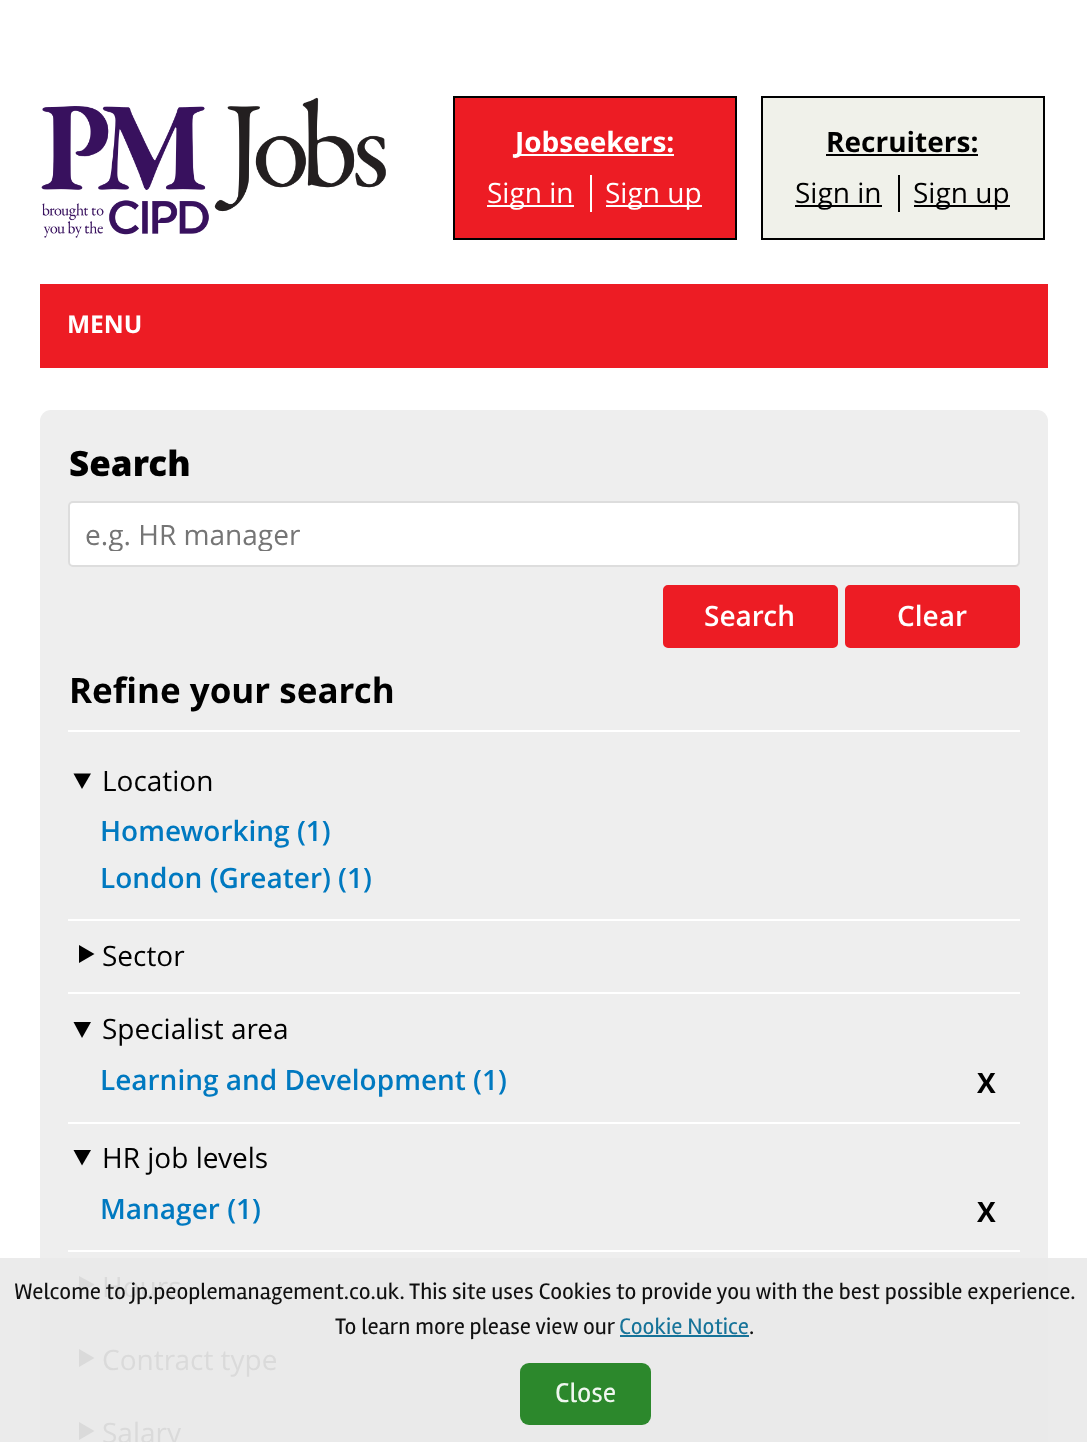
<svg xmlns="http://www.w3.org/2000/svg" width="1087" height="1442">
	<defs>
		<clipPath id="clip1"><rect x="84" y="515" width="921" height="36" /></clipPath>
	</defs>
	<rect width="100%" height="100%" fill="#FFFFFF" />
	<rect x="0" y="1258" width="1087" height="184" fill="#EBEBEB" />
	<image x="41" y="97" width="345" height="141" href="assets/img1.png" />
	<rect x="454" y="97" width="282" height="142" fill="#ED1C24" stroke="#000000" stroke-width="2" />
	<rect x="515" y="154" width="159" height="2" fill="#FFFFFF" />
	<text x="515" y="152" font-family="Open Sans" font-size="28" font-weight="700" fill="#FFFFFF">Jobseekers:</text>
	<rect x="590" y="175" width="2" height="37" fill="#FFFFFF" />
	<rect x="487" y="205" width="87" height="2" fill="#FFFFFF" />
	<text x="487" y="203" font-family="Open Sans" font-size="28" fill="#FFFFFF">Sign in</text>
	<rect x="606" y="205" width="96" height="2" fill="#FFFFFF" />
	<text x="605" y="203" font-family="Open Sans" font-size="28" fill="#FFFFFF">Sign up</text>
	<rect x="762" y="97" width="282" height="142" fill="#F0F1EA" stroke="#000000" stroke-width="2" />
	<text x="826" y="152" font-family="Open Sans" font-size="28" font-weight="700" fill="#000000">Recruiters:</text>
	<rect x="826" y="154" width="152" height="2" fill="#000000" />
	<rect x="898" y="175" width="2" height="37" fill="#000000" />
	<rect x="795" y="205" width="87" height="2" fill="#000000" />
	<text x="795" y="203" font-family="Open Sans" font-size="28" fill="#000000">Sign in</text>
	<rect x="914" y="205" width="96" height="2" fill="#000000" />
	<text x="913" y="203" font-family="Open Sans" font-size="28" fill="#000000">Sign up</text>
	<rect x="40" y="284" width="1008" height="84" fill="#ED1C24" />
	<text x="67" y="333" font-family="Open Sans" font-size="24.5" font-weight="700" fill="#FFFFFF">MENU</text>
	<rect x="40" y="410" width="1008" height="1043" rx="11" fill="#EEEEEE" />
	<rect x="40" y="1258" width="1008" height="184" fill="#EAEAEA" />
	<text x="69" y="476" font-family="Open Sans" font-size="35" font-weight="800" fill="#000000">Search</text>
	<rect x="69" y="502" width="950" height="64" rx="4" fill="#FFFFFF" stroke="#DDDDDD" stroke-width="2" />
	<g clip-path="url(#clip1)">
		<text x="85" y="545" font-family="Open Sans" font-size="28" fill="#757575">e.g. HR manager</text>
	</g>
	<rect x="664" y="586" width="173" height="61" rx="4" fill="#ED1C24" stroke="#ED1C24" stroke-width="2" />
	<text x="704" y="626" font-family="Open Sans" font-size="28" font-weight="600" fill="#FFFFFF">Search</text>
	<rect x="846" y="586" width="173" height="61" rx="4" fill="#ED1C24" stroke="#ED1C24" stroke-width="2" />
	<text x="897" y="626" font-family="Open Sans" font-size="28" font-weight="600" fill="#FFFFFF">Clear</text>
	<rect x="68" y="730" width="952" height="2" fill="#FFFFFF" />
	<text x="69" y="703" font-family="Open Sans" font-size="35" font-weight="700" fill="#000000">Refine your search</text>
	<path d="M73.5 773.5H91L82 789Z" fill="#000000" />
	<text x="102" y="791" font-family="Open Sans" font-size="28" fill="#000000">Location</text>
	<rect x="68" y="919" width="952" height="2" fill="#FFFFFF" />
	<g font-family="Open Sans" font-size="28" font-weight="600" fill="#0079C0">
		<text x="100" y="841">Homeworking (1)</text>
		<text x="100" y="888">London (Greater) (1)</text>
	</g>
	<rect x="68" y="992" width="952" height="2" fill="#FFFFFF" />
	<path d="M79 945L94.5 954L79 963Z" fill="#000000" />
	<text x="102" y="966" font-family="Open Sans" font-size="28" fill="#000000">Sector</text>
	<path d="M73.5 1022H91L82 1038Z" fill="#000000" />
	<text x="102" y="1039" font-family="Open Sans" font-size="28" fill="#000000">Specialist area</text>
	<rect x="68" y="1122" width="952" height="2" fill="#FFFFFF" />
	<text x="100" y="1090" font-family="Open Sans" font-size="28" font-weight="600" fill="#0079C0">Learning and Development (1)</text>
	<text x="977" y="1093" font-family="Open Sans" font-size="28" font-weight="700" fill="#000000">X</text>
	<path d="M73.5 1150H91L82 1165.5Z" fill="#000000" />
	<text x="102" y="1168" font-family="Open Sans" font-size="28" fill="#000000">HR job levels</text>
	<rect x="68" y="1250" width="952" height="2" fill="#FFFFFF" />
	<text x="100" y="1219" font-family="Open Sans" font-size="28" font-weight="600" fill="#0079C0">Manager (1)</text>
	<text x="977" y="1222" font-family="Open Sans" font-size="28" font-weight="700" fill="#000000">X</text>
	<path d="M79 1276L94.5 1284.5L79 1294Z" fill="#DADADA" />
	<text x="102" y="1297" font-family="Open Sans" font-size="28" fill="#DADADA">Hours</text>
	<path d="M79 1349L94.5 1358L79 1367Z" fill="#DADADA" />
	<text x="102" y="1370" font-family="Open Sans" font-size="28" fill="#DADADA">Contract type</text>
	<path d="M79 1422L94.5 1431L79 1440Z" fill="#DADADA" />
	<text x="102" y="1443" font-family="Open Sans" font-size="28" fill="#DADADA">Salary</text>
	<g font-family="Rambla" font-size="23.3" fill="#101010">
		<text x="14" y="1299">Welcome to jp.peoplemanagement.co.uk. This site uses Cookies to provide you with the best possible experience.</text>
		<text x="335" y="1334">To learn more please view our</text>
	</g>
	<text x="619" y="1334" font-family="Rambla" font-size="23.3" fill="#167399">Cookie Notice</text>
	<rect x="620" y="1335" width="129" height="2" fill="#167399" />
	<text x="749" y="1334" font-family="Rambla" font-size="23.3" fill="#101010">.</text>
	<rect x="520" y="1363" width="131" height="62" rx="9" fill="#2C882C" />
	<text x="555" y="1402" font-family="Rambla" font-size="28" fill="#F0F7F0">Close</text>
</svg>
